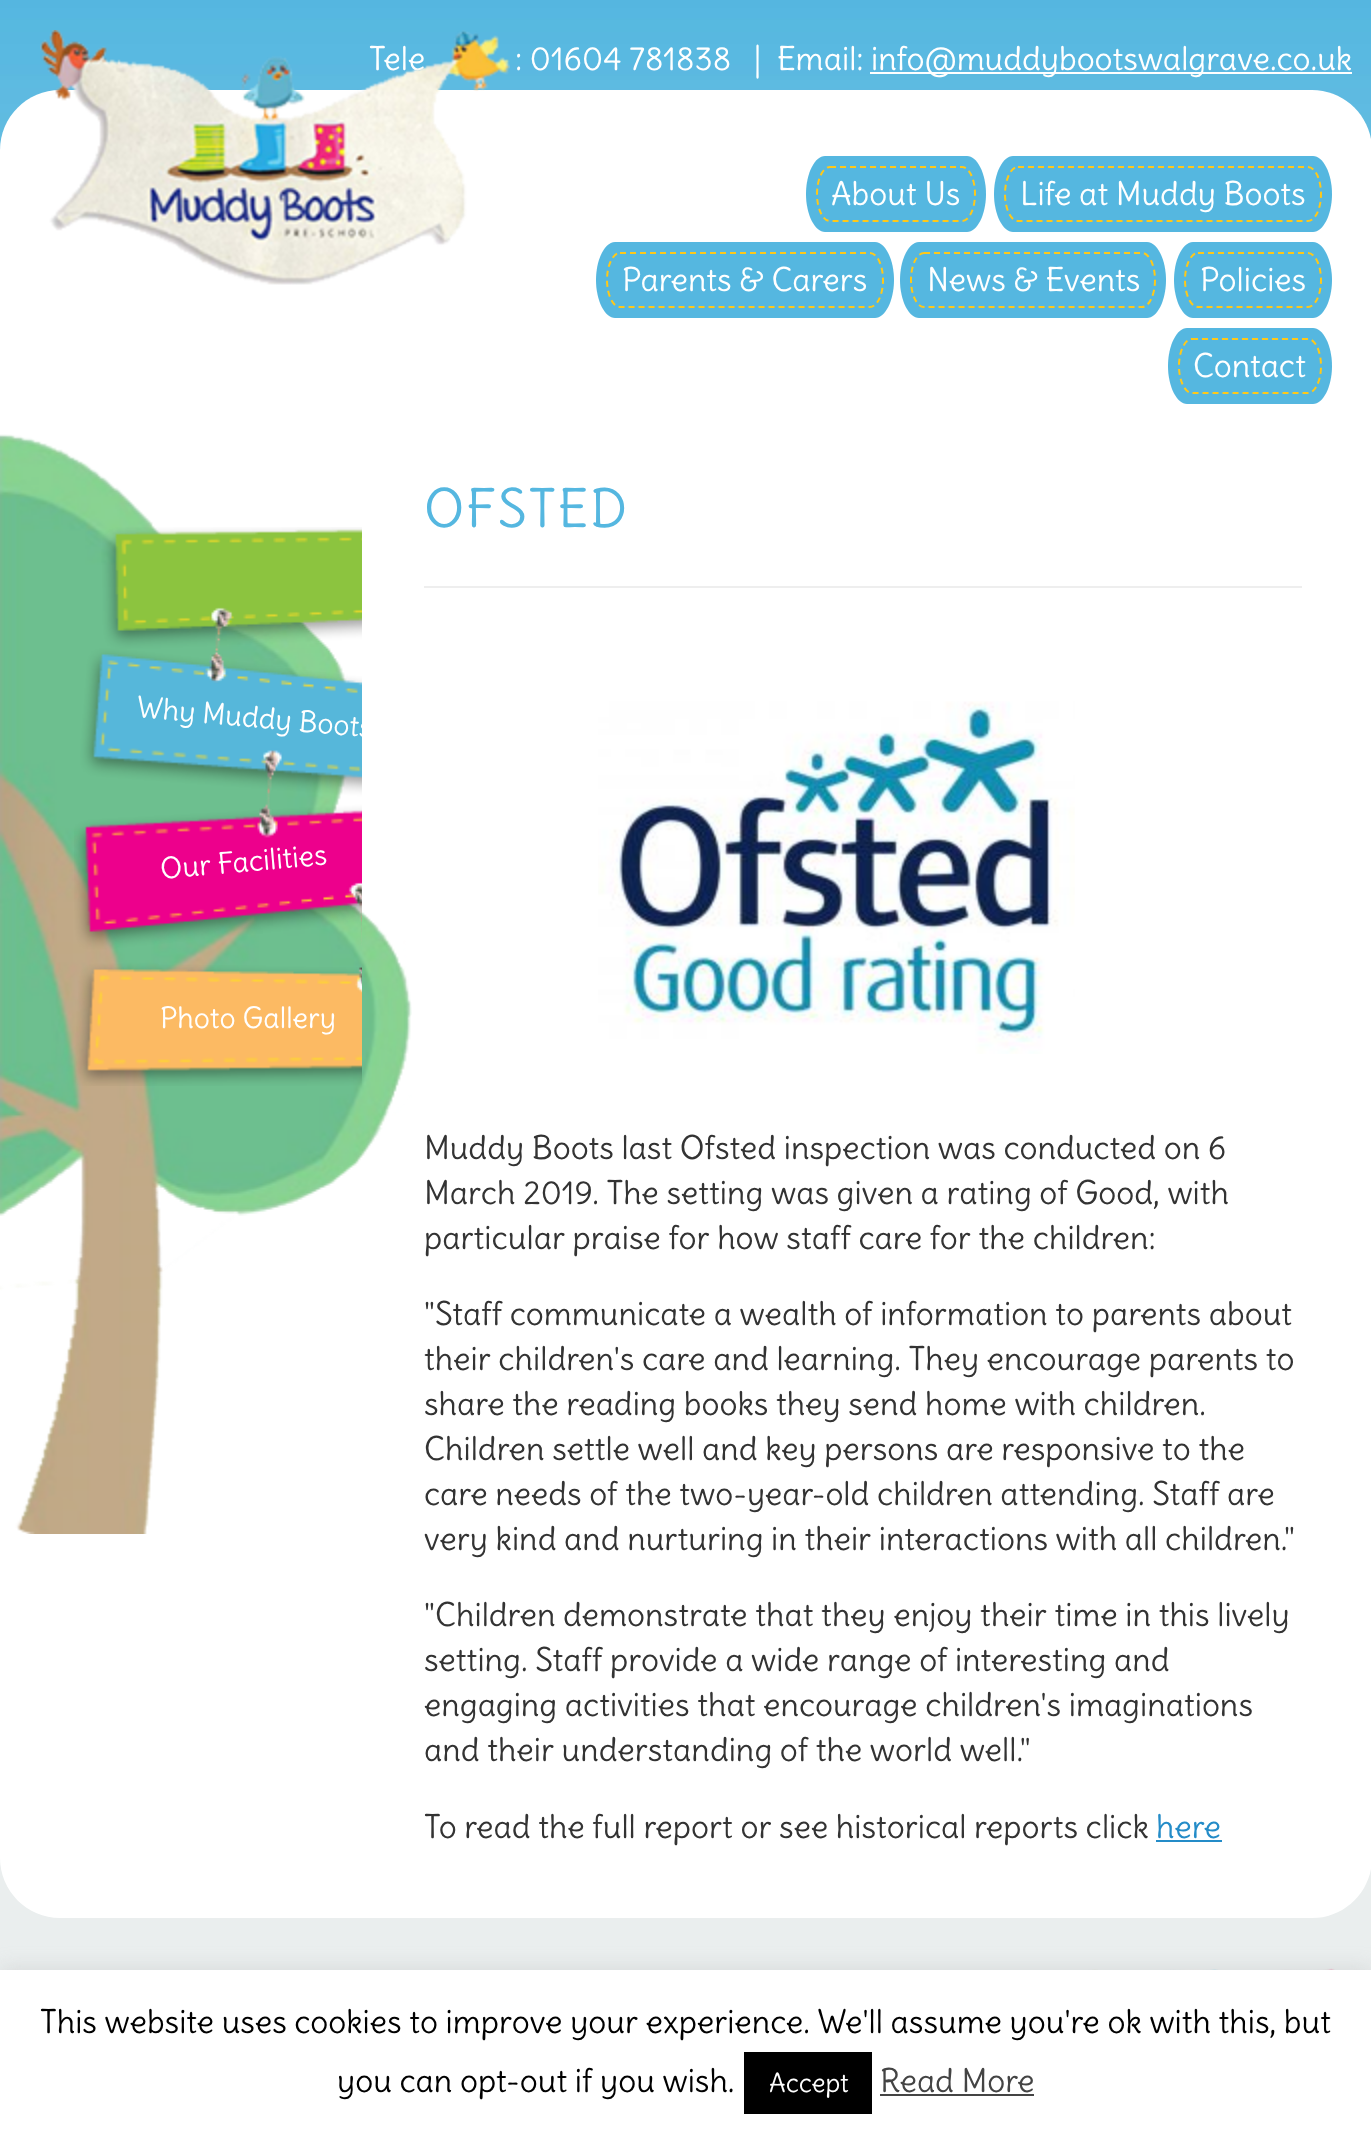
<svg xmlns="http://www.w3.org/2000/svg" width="1371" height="2137">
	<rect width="100%" height="100%" fill="#EAEEEE" />
	<image x="0" y="0" width="1371" height="150" href="assets/img1.png" />
	<g font-family="Delius" font-size="32" fill="#FFFFFF">
		<text x="369" y="70">Tele</text>
		<text x="515" y="70" xml:space="preserve">: 01604 781838   |</text>
		<text x="777" y="70">Email:</text>
	</g>
	<rect x="870" y="72" width="482" height="2" fill="#FFFFFF" />
	<text x="871" y="70" font-family="Delius" font-size="32" fill="#FFFFFF">info@muddybootswalgrave.co.uk</text>
	<path d="M60 90H1312C1345 90 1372 117 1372 150V404H0V150C0 117 27 90 60 90Z" fill="#FFFFFF" />
	<image x="40" y="30" width="470" height="255" href="assets/img2.png" />
	<path d="M825 156H967C977 156 986 173 986 194C986 215 977 232 967 232H825C815 232 806 215 806 194C806 173 815 156 825 156Z" fill="#55B7E0" />
	<path d="M830 167H962C969 167 975 179 975 194C975 209 969 221 962 221H830C823 221 817 209 817 194C817 179 823 167 830 167Z" fill="none" stroke="#FEC81A" stroke-width="2" stroke-dasharray="6 4" />
	<text x="831" y="205" font-family="Delius" font-size="32" fill="#FFFFFF">About Us</text>
	<path d="M1013 156H1313C1323 156 1332 173 1332 194C1332 215 1323 232 1313 232H1013C1003 232 994 215 994 194C994 173 1003 156 1013 156Z" fill="#55B7E0" />
	<path d="M1018 167H1308C1315 167 1321 179 1321 194C1321 209 1315 221 1308 221H1018C1011 221 1005 209 1005 194C1005 179 1011 167 1018 167Z" fill="none" stroke="#FEC81A" stroke-width="2" stroke-dasharray="6 4" />
	<text x="1020" y="205" font-family="Delius" font-size="32" fill="#FFFFFF">Life at Muddy Boots</text>
	<path d="M615 242H875C885 242 894 259 894 280C894 301 885 318 875 318H615C605 318 596 301 596 280C596 259 605 242 615 242Z" fill="#55B7E0" />
	<path d="M620 253H870C877 253 883 265 883 280C883 295 877 307 870 307H620C613 307 607 295 607 280C607 265 613 253 620 253Z" fill="none" stroke="#FEC81A" stroke-width="2" stroke-dasharray="6 4" />
	<text x="622" y="291" font-family="Delius" font-size="32" fill="#FFFFFF">Parents &amp; Carers</text>
	<path d="M919 242H1147C1157 242 1166 259 1166 280C1166 301 1157 318 1147 318H919C909 318 900 301 900 280C900 259 909 242 919 242Z" fill="#55B7E0" />
	<path d="M924 253H1142C1149 253 1155 265 1155 280C1155 295 1149 307 1142 307H924C917 307 911 295 911 280C911 265 917 253 924 253Z" fill="none" stroke="#FEC81A" stroke-width="2" stroke-dasharray="6 4" />
	<text x="927" y="291" font-family="Delius" font-size="32" fill="#FFFFFF">News &amp; Events</text>
	<path d="M1193 242H1313C1323 242 1332 259 1332 280C1332 301 1323 318 1313 318H1193C1183 318 1174 301 1174 280C1174 259 1183 242 1193 242Z" fill="#55B7E0" />
	<path d="M1198 253H1308C1315 253 1321 265 1321 280C1321 295 1315 307 1308 307H1198C1191 307 1185 295 1185 280C1185 265 1191 253 1198 253Z" fill="none" stroke="#FEC81A" stroke-width="2" stroke-dasharray="6 4" />
	<text x="1200" y="291" font-family="Delius" font-size="32" fill="#FFFFFF">Policies</text>
	<path d="M1187 328H1313C1323 328 1332 345 1332 366C1332 387 1323 404 1313 404H1187C1177 404 1168 387 1168 366C1168 345 1177 328 1187 328Z" fill="#55B7E0" />
	<path d="M1192 339H1308C1315 339 1321 351 1321 366C1321 381 1315 393 1308 393H1192C1185 393 1179 381 1179 366C1179 351 1185 339 1192 339Z" fill="none" stroke="#FEC81A" stroke-width="2" stroke-dasharray="6 4" />
	<text x="1193" y="377" font-family="Delius" font-size="32" fill="#FFFFFF">Contact</text>
	<path d="M0 404H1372V1858C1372 1891 1345 1918 1312 1918H60C27 1918 0 1891 0 1858Z" fill="#FFFFFF" />
	<image x="0" y="434" width="412" height="1100" href="assets/img3.png" />
	<image x="74" y="527" width="288" height="559" href="assets/img4.png" />
	<g font-family="Delius" font-size="28.75" fill="#FFFFFF">
		<text x="136" y="717" transform="rotate(5 136 717)">Why Muddy Boots?</text>
		<text x="161" y="879" transform="rotate(-5 161 879)">Our Facilities</text>
		<text x="160" y="1028">Photo Gallery</text>
	</g>
	<text x="424" y="527" font-family="Delius" font-size="52" letter-spacing="2" fill="#55B7E0">OFSTED</text>
	<rect x="424" y="586" width="878" height="2" fill="#EEEEEE" />
	<image x="598" y="701" width="477" height="353" href="assets/img5.png" />
	<g font-family="Delius" font-size="32" fill="#333333">
		<text x="424" y="1159">Muddy Boots last Ofsted inspection was conducted on 6</text>
		<text x="424" y="1204">March 2019. The setting was given a rating of Good, with</text>
		<text x="424" y="1249">particular praise for how staff care for the children:</text>
		<text x="424" y="1325">"Staff communicate a wealth of information to parents about</text>
		<text x="424" y="1370">their children's care and learning. They encourage parents to</text>
		<text x="424" y="1415">share the reading books they send home with children.</text>
		<text x="424" y="1460">Children settle well and key persons are responsive to the</text>
		<text x="424" y="1505">care needs of the two-year-old children attending. Staff are</text>
		<text x="424" y="1550">very kind and nurturing in their interactions with all children."</text>
		<text x="424" y="1626">"Children demonstrate that they enjoy their time in this lively</text>
		<text x="424" y="1671">setting. Staff provide a wide range of interesting and</text>
		<text x="424" y="1716">engaging activities that encourage children's imaginations</text>
		<text x="424" y="1761">and their understanding of the world well."</text>
		<text x="424" y="1838">To read the full report or see historical reports click</text>
	</g>
	<text x="1156" y="1838" font-family="Delius" font-size="32" fill="#248CC8">here</text>
	<rect x="1156" y="1840" width="66" height="2" fill="#248CC8" />
	<image x="1088" y="1968" width="247" height="2" href="assets/img6.png" />
	<rect x="0" y="1968" width="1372" height="168" fill="#ACABAB" fill-opacity="0.3" filter="blur(10px)" />
	<rect x="0" y="1970" width="1371" height="167" fill="#FFFFFF" />
	<g font-family="Delius" font-size="32" fill="#000000">
		<text x="40" y="2033">This website uses cookies to improve your experience. We'll assume you're ok with this, but</text>
		<text x="337" y="2092">you can opt-out if you wish.</text>
	</g>
	<rect x="744" y="2052" width="128" height="62" fill="#000000" />
	<text x="769" y="2092" font-family="Delius" font-size="26" fill="#FFFFFF">Accept</text>
	<text x="880" y="2092" font-family="Delius" font-size="32" fill="#444444">Read More</text>
	<rect x="880" y="2094" width="154" height="2" fill="#444444" />
</svg>
